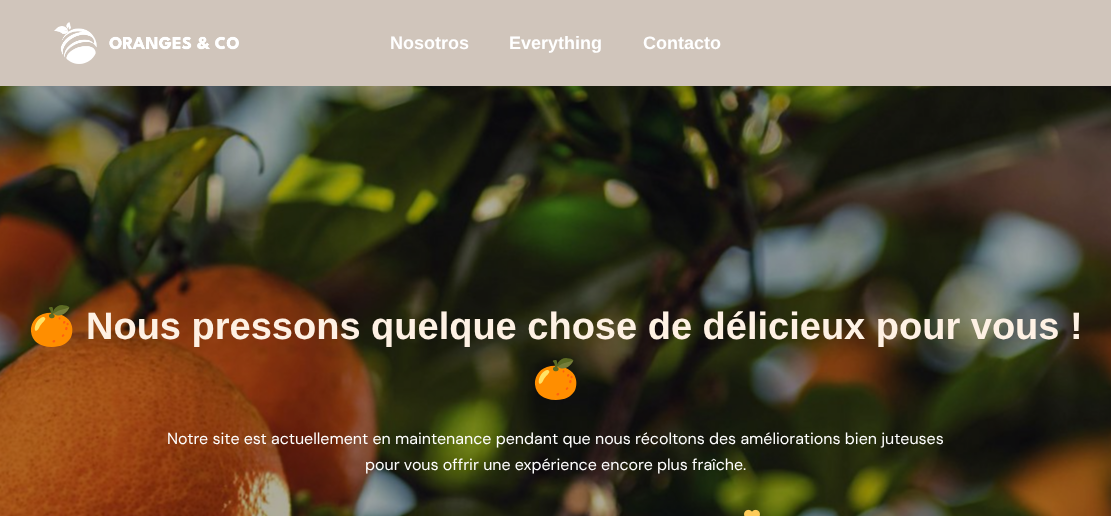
<svg xmlns="http://www.w3.org/2000/svg" width="1111" height="516">
	<rect width="100%" height="100%" fill="#FFFFFF" />
	<rect x="0" y="0" width="1111" height="86" fill="#D0C5BB" />
	<image x="54" y="22" width="185" height="42" href="assets/img1.png" />
	<g font-family="Liberation Sans" font-size="18" font-weight="700" fill="#FFFFFF">
		<text x="390" y="49">Nosotros</text>
		<text x="509" y="49">Everything</text>
		<text x="643" y="49">Contacto</text>
	</g>
	<image x="0" y="86" width="1111" height="430" href="assets/img2.png" />
	<text x="28" y="339" font-family="Noto Color Emoji" font-size="38" font-weight="700" fill="#FEF1E4">🍊</text>
	<text x="86" y="339" font-family="Liberation Sans" font-size="38" font-weight="700" fill="#FEF1E4">Nous pressons quelque chose de délicieux pour vous !</text>
	<text x="532" y="392" font-family="Noto Color Emoji" font-size="38" font-weight="700" fill="#FEF1E4">🍊</text>
	<g font-family="DM Sans" font-size="16" fill="#FFFFFF">
		<text x="167" y="444">Notre site est actuellement en maintenance pendant que nous récoltons des améliorations bien juteuses</text>
		<text x="365" y="470">pour vous offrir une expérience encore plus fraîche.</text>
	</g>
	<image x="744" y="509" width="16" height="7" href="assets/img3.png" />
</svg>
